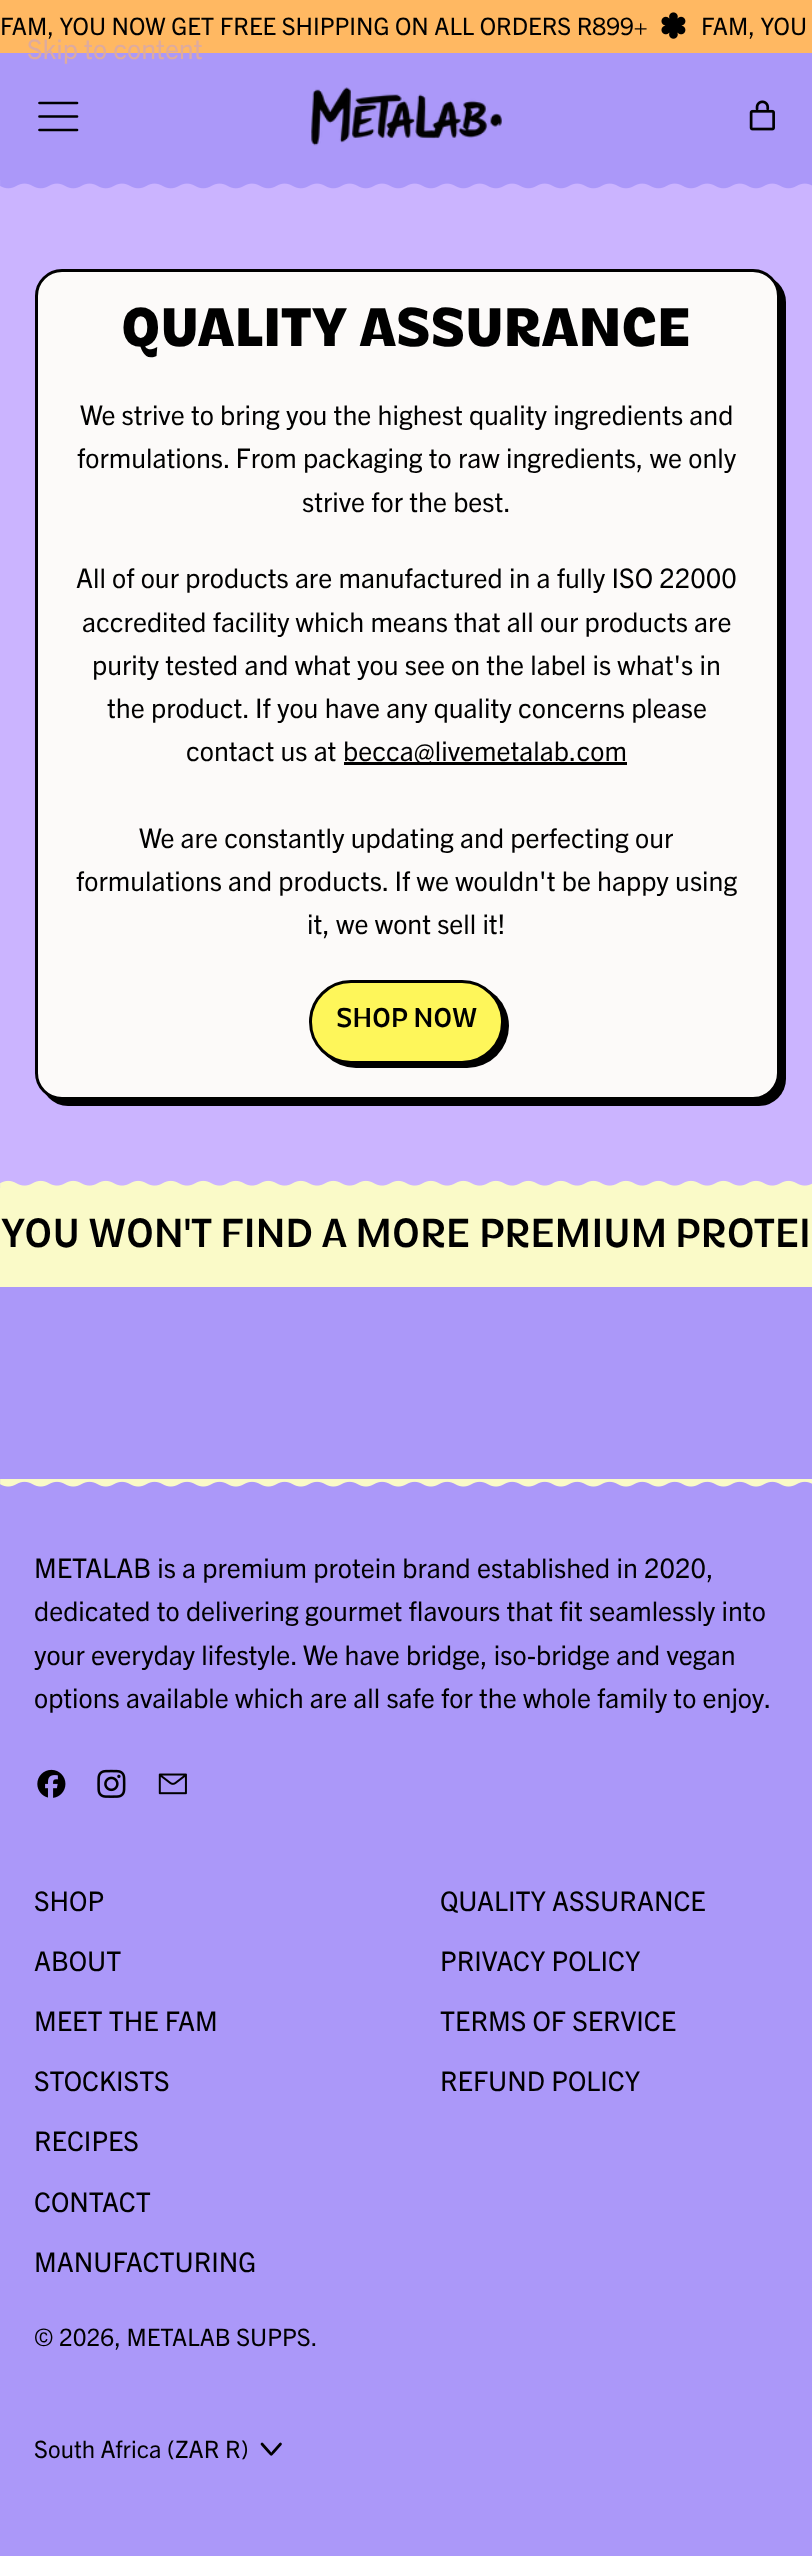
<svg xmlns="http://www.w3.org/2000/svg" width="812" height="2556">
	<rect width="100%" height="100%" fill="#AB98F9" />
	<rect x="0" y="0" width="812" height="53" fill="#FFB862" />
	<text x="0" y="35" font-family="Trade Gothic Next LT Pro" font-size="24.05" fill="#000000">FAM, YOU NOW GET FREE SHIPPING ON ALL ORDERS R899+</text>
	<image x="661" y="12" width="25" height="27" href="assets/img1.png" />
	<text x="701" y="35" font-family="Trade Gothic Next LT Pro" font-size="24.05" fill="#000000">FAM, YOU</text>
	<text x="27" y="59" font-family="Trade Gothic Next LT Pro" font-size="27" fill="#DDAB9F">Skip to content</text>
	<path d="M77 130H39.5M77 116.5H39.5M77 103H39.5" fill="none" stroke="#000000" stroke-width="2.7" stroke-linecap="round" stroke-linejoin="round" />
	<image x="311" y="87" width="191" height="59" href="assets/img2.png" />
	<image x="749" y="100" width="26" height="31" href="assets/img3.png" />
	<rect x="0" y="180" width="812" height="1008" fill="#CBB4FF" />
	<image x="0" y="180" width="812" height="9" href="assets/img4.png" />
	<rect x="41" y="275" width="745" height="831" rx="27" fill="#000000" />
	<rect x="36.5" y="270.5" width="742" height="828" rx="25.5" fill="#FCFAF9" stroke="#000000" stroke-width="3" />
	<text x="121" y="346" font-family="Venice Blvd" font-size="54" font-weight="700" fill="#000000">QUALITY ASSURANCE</text>
	<g font-family="Trade Gothic Next LT Pro" font-size="27" fill="#000000">
		<text x="80" y="425">We strive to bring you the highest quality ingredients and</text>
		<text x="77" y="468">formulations. From packaging to raw ingredients, we only</text>
		<text x="302" y="512">strive for the best.</text>
		<text x="76" y="588">All of our products are manufactured in a fully ISO 22000</text>
		<text x="82" y="632">accredited facility which means that all our products are</text>
		<text x="92" y="675">purity tested and what you see on the label is what's in</text>
		<text x="107" y="718">the product. If you have any quality concerns please</text>
		<text x="186" y="761">contact us at</text>
	</g>
	<rect x="344" y="762" width="283" height="3" fill="#000000" />
	<g font-family="Trade Gothic Next LT Pro" font-size="27" fill="#000000">
		<text x="343" y="761">becca@livemetalab.com</text>
		<text x="139" y="848">We are constantly updating and perfecting our</text>
		<text x="76" y="891">formulations and products. If we wouldn't be happy using</text>
		<text x="307" y="934">it, we wont sell it!</text>
	</g>
	<rect x="314" y="984" width="195" height="84" rx="42" fill="#000000" />
	<rect x="310.5" y="981.5" width="192" height="81" rx="40.5" fill="#FEF65A" stroke="#000000" stroke-width="3" />
	<text x="336" y="1027" font-family="Venice Blvd" font-size="27" fill="#000000">SHOP NOW</text>
	<image x="0" y="1180" width="812" height="8" href="assets/img5.png" />
	<rect x="0" y="1188" width="812" height="99" fill="#FAFAC8" />
	<text x="0" y="1247" font-family="Venice Blvd" font-size="40.45" fill="#000000">YOU WON'T FIND A MORE PREMIUM PROTEI</text>
	<image x="0" y="1479" width="812" height="8" href="assets/img6.png" />
	<g font-family="Trade Gothic Next LT Pro" font-size="27" fill="#000000">
		<text x="34" y="1578">METALAB is a premium protein brand established in 2020,</text>
		<text x="34" y="1621">dedicated to delivering gourmet flavours that fit seamlessly into</text>
		<text x="34" y="1665">your everyday lifestyle. We have bridge, iso-bridge and vegan</text>
		<text x="34" y="1708">options available which are all safe for the whole family to enjoy.</text>
	</g>
	<image x="37" y="1769" width="29" height="29" href="assets/img7.png" />
	<image x="97" y="1769" width="29" height="29" href="assets/img8.png" />
	<image x="158" y="1773" width="29" height="22" href="assets/img9.png" />
	<g font-family="Trade Gothic Next LT Pro" font-size="27" fill="#000000">
		<text x="34" y="1911">SHOP</text>
		<text x="34" y="1971">ABOUT</text>
		<text x="34" y="2031">MEET THE FAM</text>
		<text x="34" y="2091">STOCKISTS</text>
		<text x="34" y="2151">RECIPES</text>
		<text x="34" y="2212">CONTACT</text>
		<text x="34" y="2272">MANUFACTURING</text>
		<text x="440" y="1911">QUALITY ASSURANCE</text>
		<text x="440" y="1971">PRIVACY POLICY</text>
		<text x="440" y="2031">TERMS OF SERVICE</text>
		<text x="440" y="2091">REFUND POLICY</text>
	</g>
	<g font-family="Trade Gothic Next LT Pro" font-size="24.05" fill="#000000">
		<text x="34" y="2346">© 2026, METALAB SUPPS.</text>
		<text x="34" y="2458">South Africa (ZAR R)</text>
	</g>
	<path d="M262 2444L269.5 2452.5C271.5 2455 271 2455 273 2452.5L280.5 2444" fill="none" stroke="#000000" stroke-width="2.7" stroke-linecap="round" stroke-linejoin="round" />
</svg>
